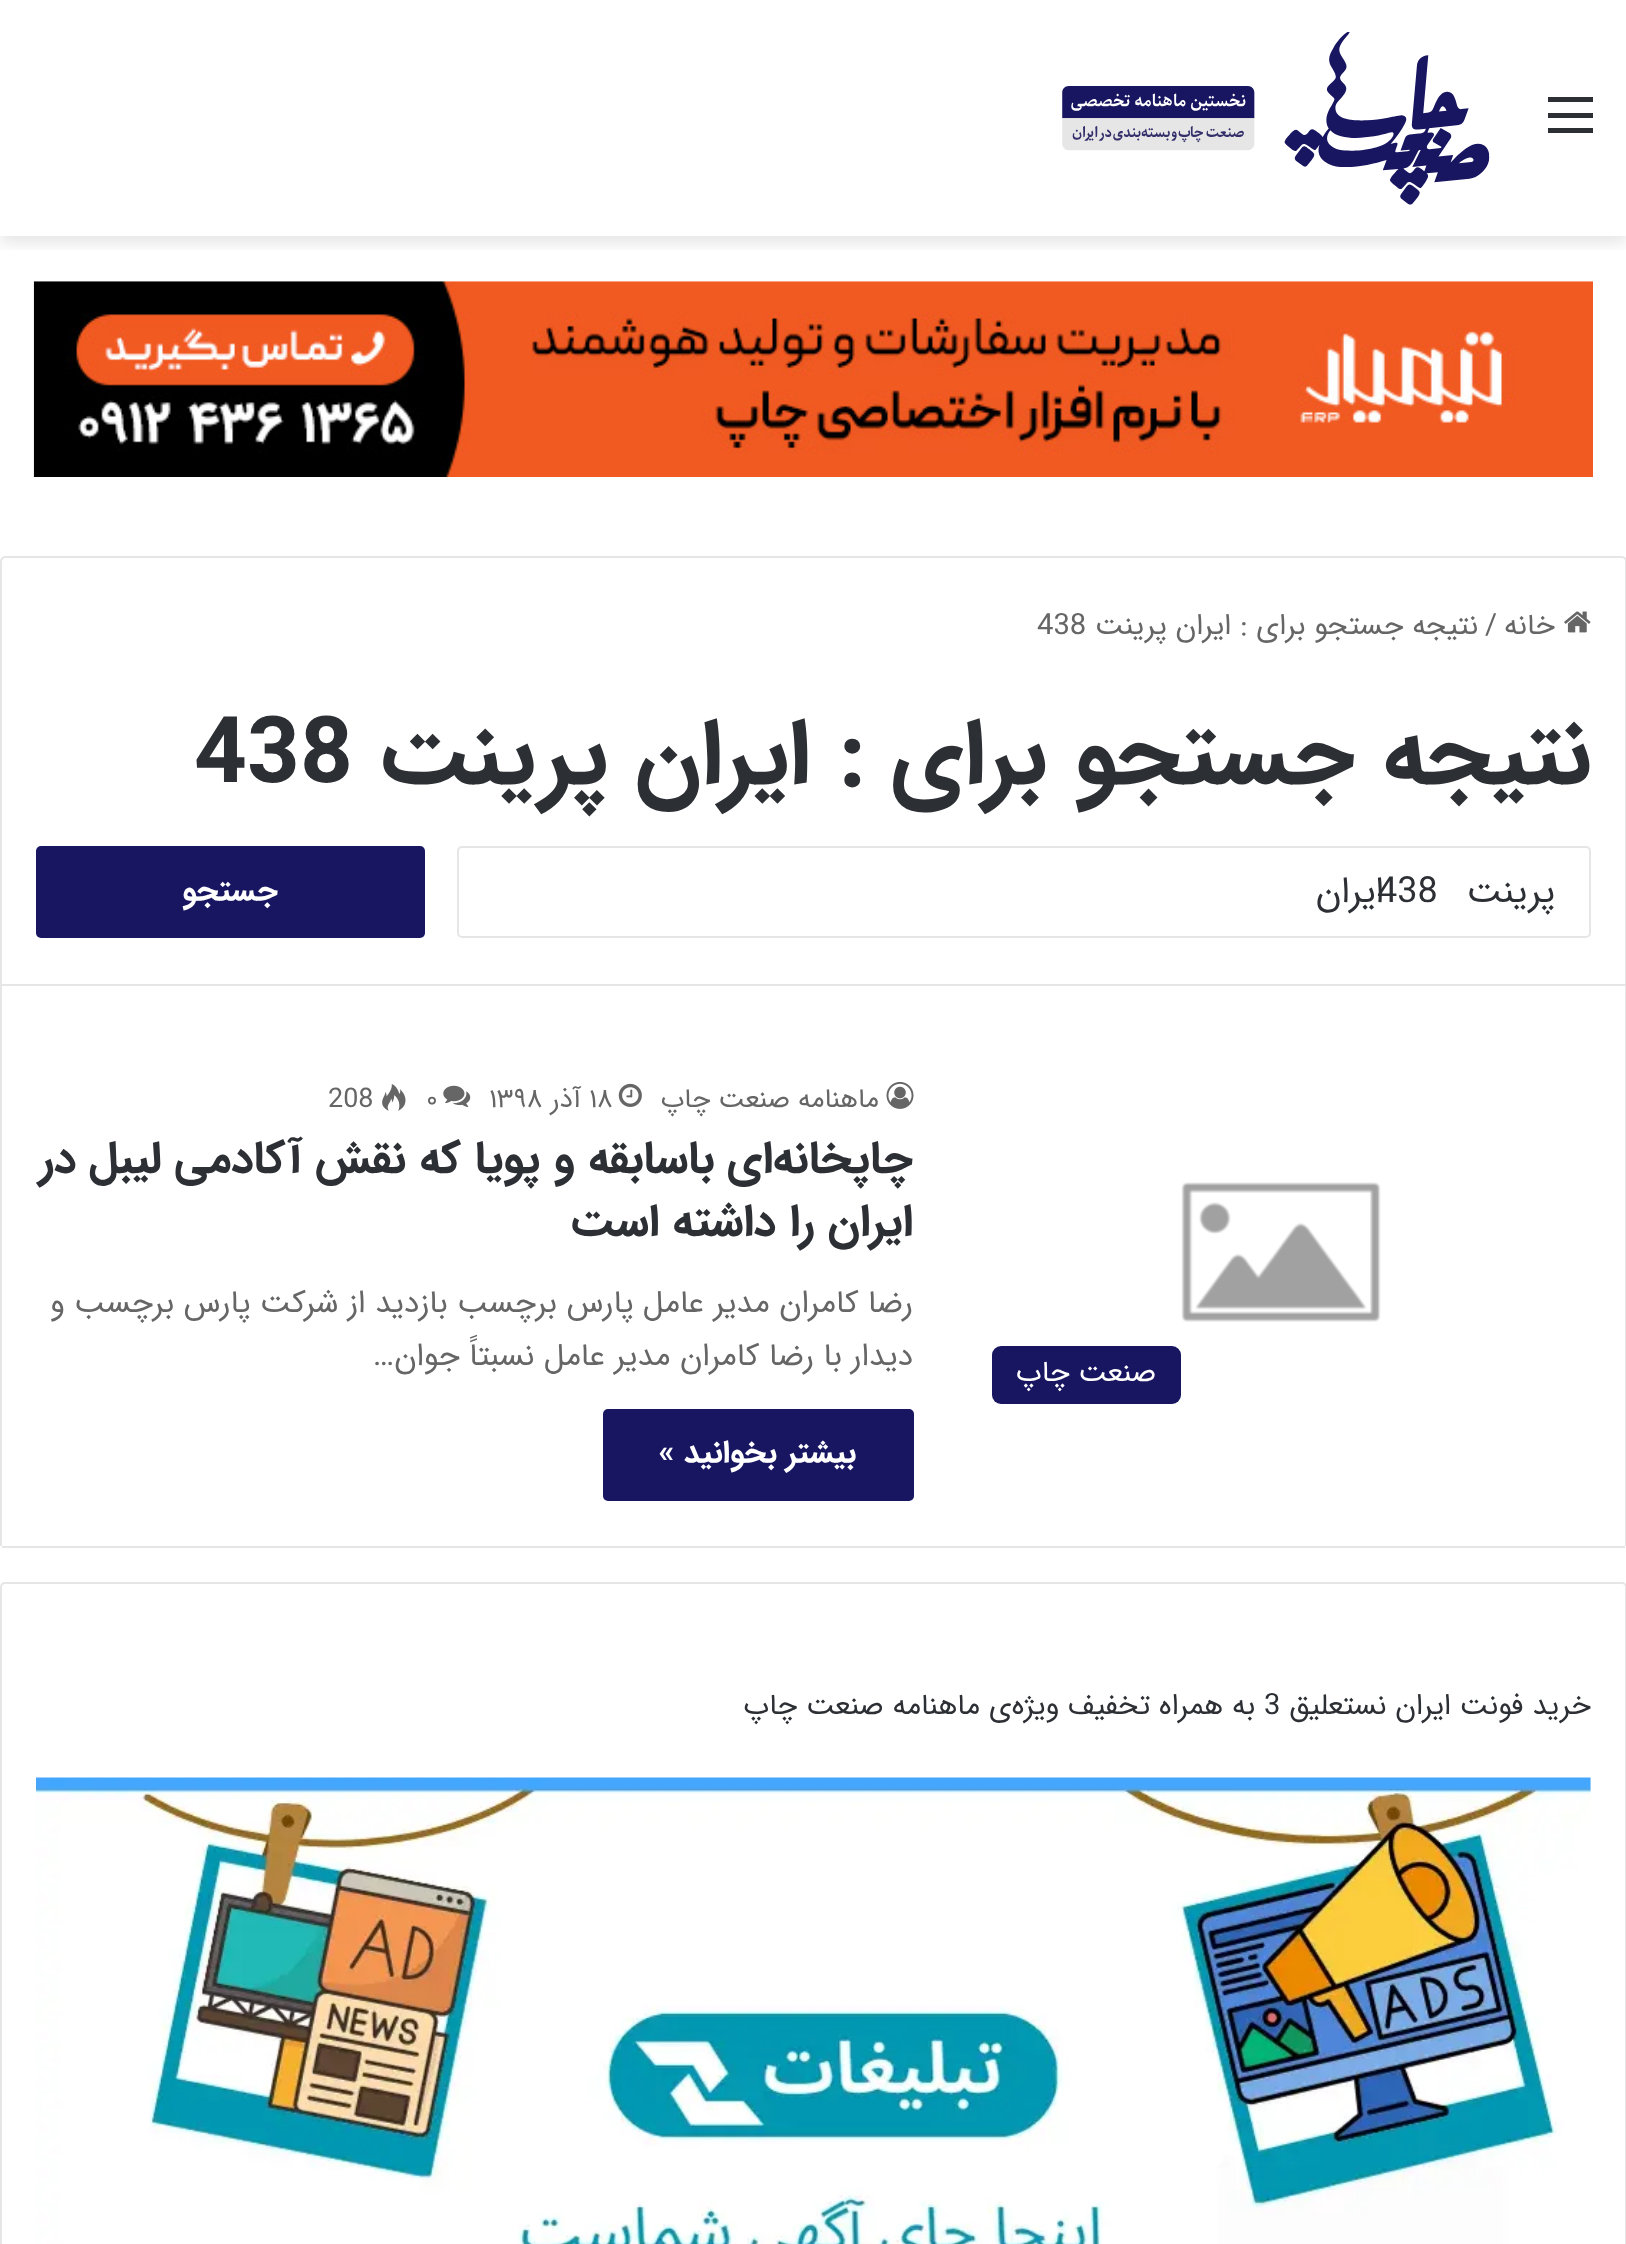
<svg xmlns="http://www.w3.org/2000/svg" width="1626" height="2244">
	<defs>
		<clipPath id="clip1"><rect x="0" y="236" width="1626" height="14" /></clipPath>
	</defs>
	<rect width="100%" height="100%" fill="#FFFFFF" />
	<g clip-path="url(#clip1)">
		<rect x="0" y="7" width="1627" height="236" fill="#000000" fill-opacity="0.1" filter="blur(8px)" />
	</g>
	<rect x="1548" y="113" width="45" height="5" fill="#2C2F34" />
	<rect x="1548" y="97" width="45" height="5" fill="#2C2F34" />
	<rect x="1548" y="128" width="45" height="5" fill="#2C2F34" />
	<image x="1062" y="32" width="428" height="173" href="assets/img1.png" />
	<image x="33" y="281" width="1560" height="196" href="assets/img2.png" />
	<path d="M5 557H1622C1624 557 1626 559 1626 561V985H1V561C1 559 3 557 5 557Z" fill="none" stroke="#E6E6E6" stroke-width="2" />
	<image x="1564" y="611" width="27" height="22" href="assets/img3.png" />
	<text x="1555" y="634" font-family="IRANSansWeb" font-size="29.25" direction="rtl" fill="#666666">خانه</text>
	<text x="1485" y="634" font-family="IRANSansWeb" font-size="29.25" fill="#666666">/</text>
	<g font-family="IRANSansWeb" font-size="29.25" direction="rtl" fill="#666666">
		<text x="1478" y="634">نتیجه جستجو برای :</text>
		<text x="1231" y="634">ایران پرینت</text>
	</g>
	<text x="1037" y="634" font-family="IRANSansWeb" font-size="29.25" fill="#666666">438</text>
	<g font-family="IRANSansWeb" font-size="92.25" font-weight="700" direction="rtl" fill="#2C2F34">
		<text x="1591" y="782">نتیجه جستجو برای :</text>
		<text x="810" y="782">ایران پرینت</text>
	</g>
	<text x="194" y="782" font-family="IRANSansWeb" font-size="92.25" font-weight="700" fill="#2C2F34">438</text>
	<rect x="458" y="847" width="1132" height="90" rx="4" fill="none" stroke="#E6E6E6" stroke-width="2" />
	<g font-family="IRANSansWeb" font-size="36" direction="rtl" fill="#2C2F34">
		<text x="1384" y="902">ایران</text>
		<text x="1555" y="902" word-spacing="18">پرینت 438</text>
	</g>
	<rect x="36" y="846" width="389" height="92" rx="5" fill="#181561" />
	<text x="278" y="900" font-family="IRANSansWeb" font-size="31.5" font-weight="700" direction="rtl" fill="#FFFFFF">جستجو</text>
	<rect x="1625" y="986" width="1" height="560" fill="#E6E6E6" />
	<rect x="2" y="1546" width="1623" height="2" fill="#E6E6E6" />
	<rect x="0" y="986" width="2" height="560" fill="#E6E6E6" />
	<image x="1181" y="1182" width="200" height="140" href="assets/img4.png" />
	<rect x="992" y="1346" width="189" height="58" rx="9" fill="#181561" />
	<text x="1156" y="1381" font-family="IRANSansWeb" font-size="29.25" direction="rtl" fill="#FFFFFF">صنعت چاپ</text>
	<image x="886" y="1081" width="28" height="28" href="assets/img5.png" />
	<text x="879" y="1107" font-family="IRANSansWeb" font-size="27" direction="rtl" fill="#666666">ماهنامه صنعت چاپ</text>
	<image x="618" y="1083" width="24" height="24" href="assets/img6.png" />
	<text x="589" y="1107" font-family="IRANSansWeb" font-size="27" fill="#666666">۱۸</text>
	<text x="581" y="1107" font-family="IRANSansWeb" font-size="27" direction="rtl" fill="#666666">آذر</text>
	<text x="489" y="1107" font-family="IRANSansWeb" font-size="27" fill="#666666">۱۳۹۸</text>
	<image x="443" y="1085" width="28" height="22" href="assets/img7.png" />
	<text x="426" y="1107" font-family="IRANSansWeb" font-size="27" fill="#666666">۰</text>
	<image x="382" y="1084" width="24" height="27" href="assets/img8.png" />
	<text x="328" y="1107" font-family="IRANSansWeb" font-size="27" fill="#666666">208</text>
	<g font-family="IRANSansWeb" font-size="45" font-weight="700" direction="rtl" fill="#2C2F34">
		<text x="913" y="1172">چاپخانه‌ای باسابقه و پویا که نقش آکادمی لیبل در</text>
		<text x="913" y="1235">ایران را داشته است</text>
	</g>
	<g font-family="IRANSansWeb" font-size="31.5" direction="rtl" fill="#666666">
		<text x="913" y="1312">رضا کامران مدیر عامل پارس برچسب بازدید از شرکت پارس برچسب و</text>
		<text x="913" y="1365">دیدار با رضا کامران مدیر عامل نسبتاً جوان…</text>
	</g>
	<rect x="603" y="1409" width="311" height="92" rx="5" fill="#181561" />
	<text x="856" y="1462" font-family="IRANSansWeb" font-size="31.5" font-weight="700" direction="rtl" fill="#FFFFFF">بیشتر بخوانید »</text>
	<rect x="1" y="1583" width="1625" height="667" rx="4" fill="none" stroke="#E6E6E6" stroke-width="2" />
	<text x="1591" y="1714" font-family="IRANSansWeb" font-size="29.25" direction="rtl" fill="#2C2F34">خرید فونت ایران نستعلیق</text>
	<text x="1264" y="1714" font-family="IRANSansWeb" font-size="29.25" fill="#2C2F34">3</text>
	<text x="1255" y="1714" font-family="IRANSansWeb" font-size="29.25" direction="rtl" fill="#2C2F34">به همراه تخفیف ویژه‌ی ماهنامه صنعت چاپ</text>
	<image x="36" y="1777" width="1555" height="467" href="assets/img9.png" />
</svg>
